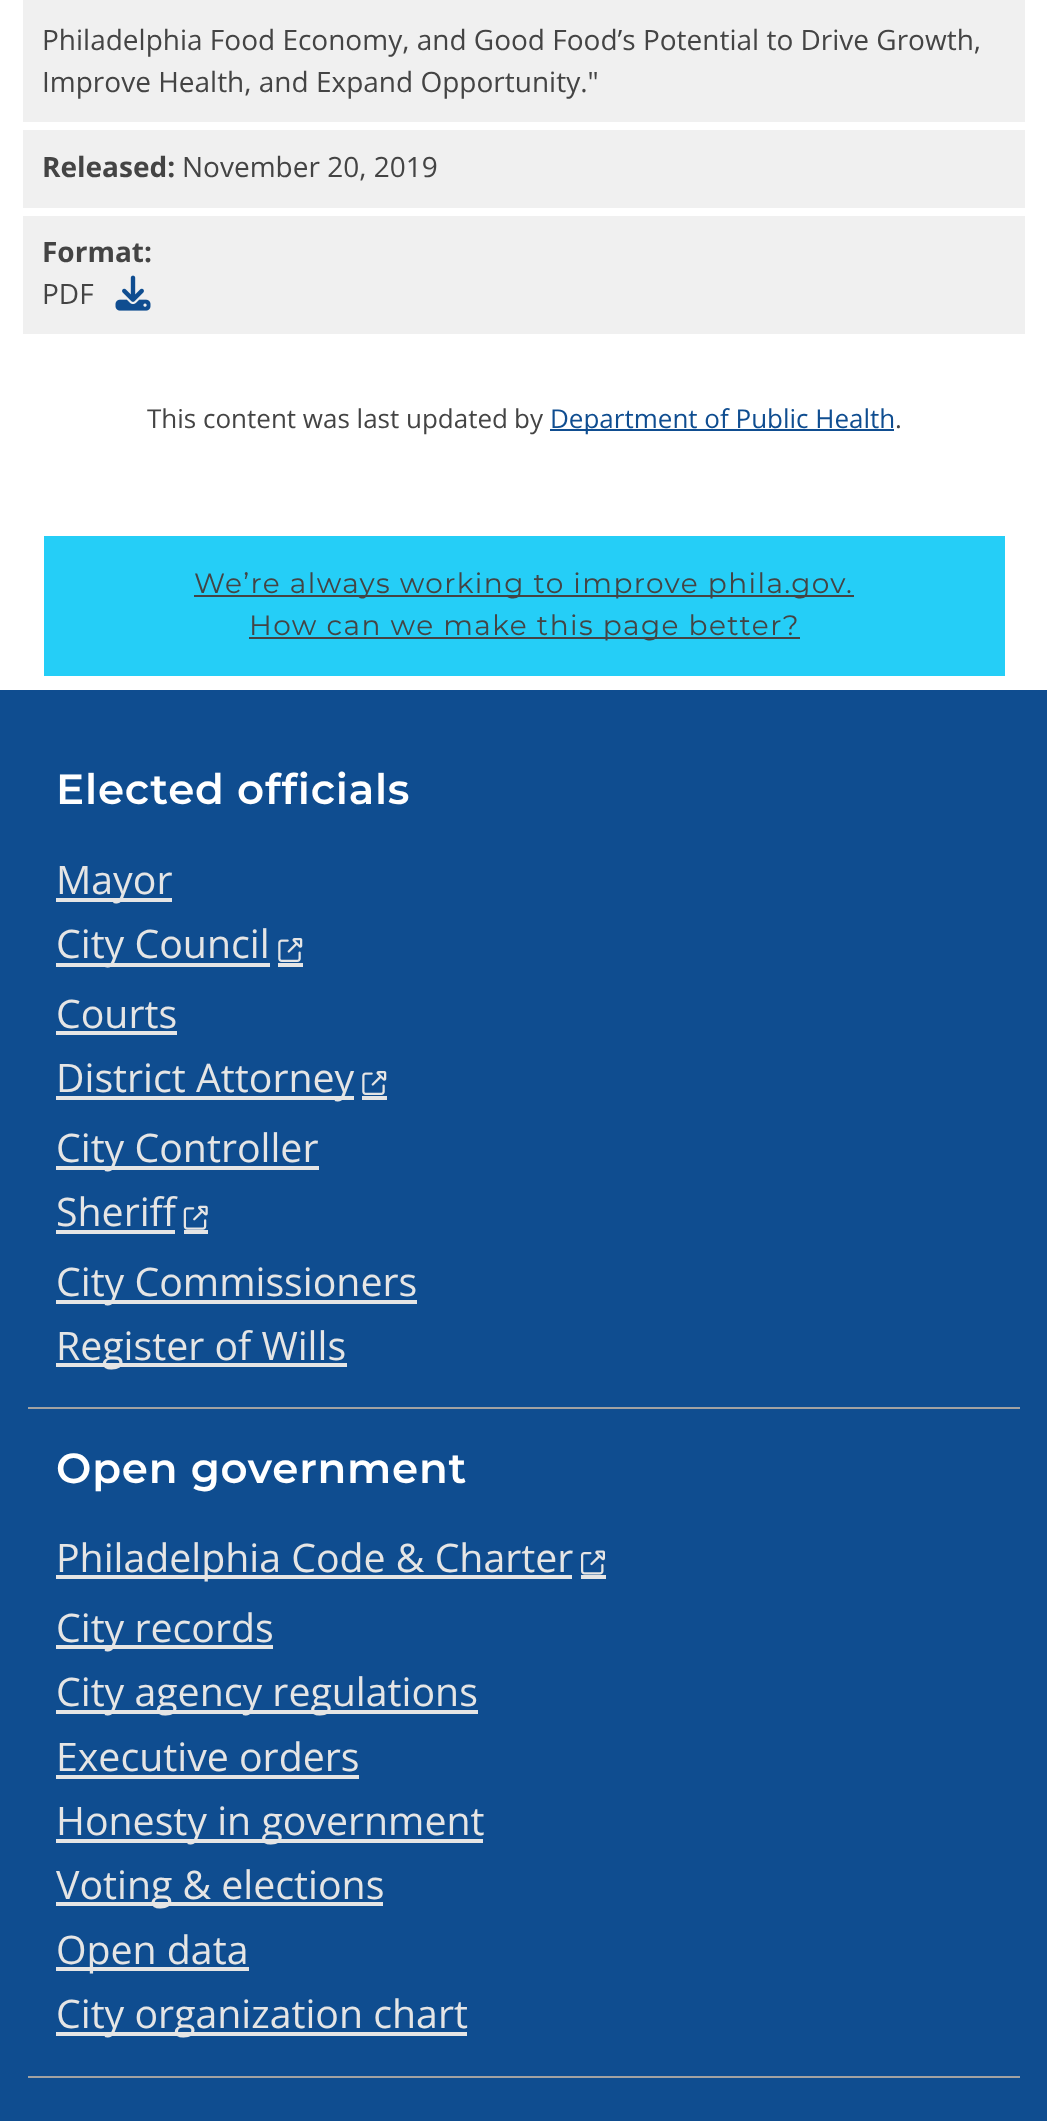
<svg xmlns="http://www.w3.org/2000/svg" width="1047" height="2121">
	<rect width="100%" height="100%" fill="#FFFFFF" />
	<rect x="23" y="0" width="1002" height="334" fill="#F0F0F0" />
	<rect x="21" y="-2" width="1006" height="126" fill="none" stroke="#FFFFFF" stroke-width="4" />
	<g font-family="Open Sans" font-size="28" fill="#444444">
		<text x="42" y="50">Philadelphia Food Economy, and Good Food’s Potential to Drive Growth,</text>
		<text x="42" y="92">Improve Health, and Expand Opportunity."</text>
	</g>
	<rect x="21" y="128" width="1006" height="82" fill="none" stroke="#FFFFFF" stroke-width="4" />
	<text x="42" y="177" font-family="Open Sans" font-size="28" font-weight="700" fill="#444444">Released:</text>
	<text x="182" y="177" font-family="Open Sans" font-size="28" fill="#444444">November 20, 2019</text>
	<rect x="21" y="214" width="1006" height="122" fill="none" stroke="#FFFFFF" stroke-width="4" />
	<text x="42" y="262" font-family="Open Sans" font-size="28" font-weight="700" fill="#444444">Format:</text>
	<text x="42" y="304" font-family="Open Sans" font-size="28" fill="#444444">PDF</text>
	<image x="115" y="275" width="36" height="36" href="assets/img1.png" />
	<g font-family="Open Sans" font-size="26" fill="#444444">
		<text x="147" y="428">This content was last updated</text>
		<text x="514" y="428">by</text>
	</g>
	<rect x="550" y="429" width="344" height="2" fill="#0F4D90" />
	<text x="550" y="428" font-family="Open Sans" font-size="26" fill="#0F4D90">Department of Public Health</text>
	<text x="895" y="428" font-family="Open Sans" font-size="26" fill="#444444">.</text>
	<rect x="44" y="536" width="961" height="140" fill="#25CEF7" />
	<rect x="194" y="595" width="660" height="2" fill="#444444" />
	<text x="194" y="593" font-family="Montserrat" font-size="28" letter-spacing="1.4" fill="#444444">We’re always working to improve phila.gov.</text>
	<rect x="249" y="637" width="551" height="2" fill="#444444" />
	<text x="249" y="635" font-family="Montserrat" font-size="28" letter-spacing="1.4" fill="#444444">How can we make this page better?</text>
	<rect x="0" y="690" width="1047" height="1431" fill="#0F4D90" />
	<rect x="28" y="1407" width="992" height="2" fill="#A2A2A2" />
	<text x="56" y="804" font-family="Montserrat" font-size="42" font-weight="100" letter-spacing="0.8" fill="#FFFFFF">Elected officials</text>
	<rect x="56" y="898" width="116" height="4" fill="#E5E5E5" />
	<text x="56" y="894" font-family="Open Sans" font-size="39.25" fill="#E5E5E5">Mayor</text>
	<rect x="56" y="963" width="214" height="4" fill="#E5E5E5" />
	<text x="56" y="958" font-family="Open Sans" font-size="39.25" fill="#E5E5E5">City Council</text>
	<rect x="278" y="963" width="25" height="4" fill="#E5E5E5" />
	<image x="278" y="938" width="25" height="24" href="assets/img2.png" />
	<text x="56" y="1028" font-family="Open Sans" font-size="39.25" fill="#E5E5E5">Courts</text>
	<rect x="56" y="1031" width="121" height="4" fill="#E5E5E5" />
	<rect x="56" y="1096" width="298" height="4" fill="#E5E5E5" />
	<text x="56" y="1092" font-family="Open Sans" font-size="39.25" fill="#E5E5E5">District Attorney</text>
	<rect x="362" y="1096" width="25" height="4" fill="#E5E5E5" />
	<image x="362" y="1071" width="25" height="24" href="assets/img2.png" />
	<rect x="56" y="1166" width="263" height="4" fill="#E5E5E5" />
	<g font-family="Open Sans" font-size="39.25" fill="#E5E5E5">
		<text x="56" y="1162">City Controller</text>
		<text x="56" y="1226">Sheriff</text>
	</g>
	<rect x="56" y="1230" width="119" height="4" fill="#E5E5E5" />
	<rect x="184" y="1230" width="24" height="4" fill="#E5E5E5" />
	<image x="183" y="1205" width="25" height="25" href="assets/img3.png" />
	<rect x="56" y="1300" width="361" height="4" fill="#E5E5E5" />
	<text x="56" y="1296" font-family="Open Sans" font-size="39.25" fill="#E5E5E5">City Commissioners</text>
	<rect x="56" y="1363" width="291" height="4" fill="#E5E5E5" />
	<text x="56" y="1360" font-family="Open Sans" font-size="39.25" fill="#E5E5E5">Register of Wills</text>
	<rect x="28" y="2076" width="992" height="2" fill="#A2A2A2" />
	<text x="56" y="1483" font-family="Montserrat" font-size="42" font-weight="100" letter-spacing="0.8" fill="#FFFFFF">Open government</text>
	<rect x="56" y="1575" width="516" height="4" fill="#E5E5E5" />
	<text x="56" y="1572" font-family="Open Sans" font-size="39.25" fill="#E5E5E5">Philadelphia Code &amp; Charter</text>
	<rect x="581" y="1575" width="25" height="4" fill="#E5E5E5" />
	<image x="581" y="1550" width="24" height="25" href="assets/img4.png" />
	<rect x="56" y="1645" width="217" height="4" fill="#E5E5E5" />
	<text x="56" y="1642" font-family="Open Sans" font-size="39.25" fill="#E5E5E5">City records</text>
	<rect x="56" y="1710" width="422" height="4" fill="#E5E5E5" />
	<g font-family="Open Sans" font-size="39.25" fill="#E5E5E5">
		<text x="56" y="1706">City agency regulations</text>
		<text x="56" y="1771">Executive orders</text>
	</g>
	<rect x="56" y="1775" width="303" height="4" fill="#E5E5E5" />
	<rect x="56" y="1839" width="427" height="4" fill="#E5E5E5" />
	<text x="56" y="1835" font-family="Open Sans" font-size="39.25" fill="#E5E5E5">Honesty in government</text>
	<rect x="56" y="1902" width="327" height="4" fill="#E5E5E5" />
	<text x="56" y="1899" font-family="Open Sans" font-size="39.25" fill="#E5E5E5">Voting &amp; elections</text>
	<rect x="56" y="1967" width="193" height="4" fill="#E5E5E5" />
	<text x="56" y="1964" font-family="Open Sans" font-size="39.25" fill="#E5E5E5">Open data</text>
	<rect x="56" y="2032" width="411" height="4" fill="#E5E5E5" />
	<text x="56" y="2028" font-family="Open Sans" font-size="39.25" fill="#E5E5E5">City organization chart</text>
</svg>
